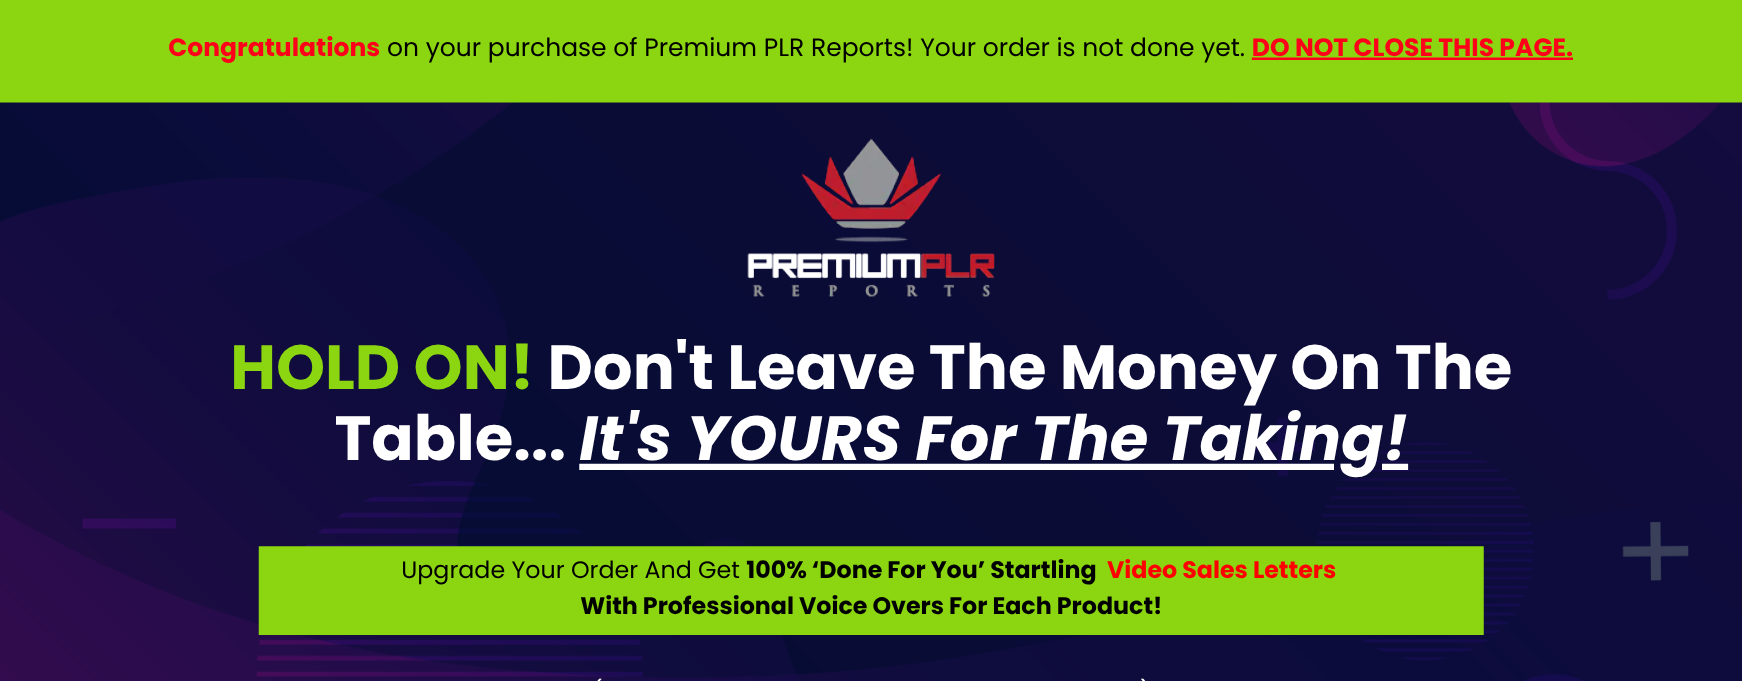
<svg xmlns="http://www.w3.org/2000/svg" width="1742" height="681">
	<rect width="100%" height="100%" fill="#FFFFFF" />
	<image x="0" y="0" width="1742" height="681" href="assets/img1.png" />
</svg>
